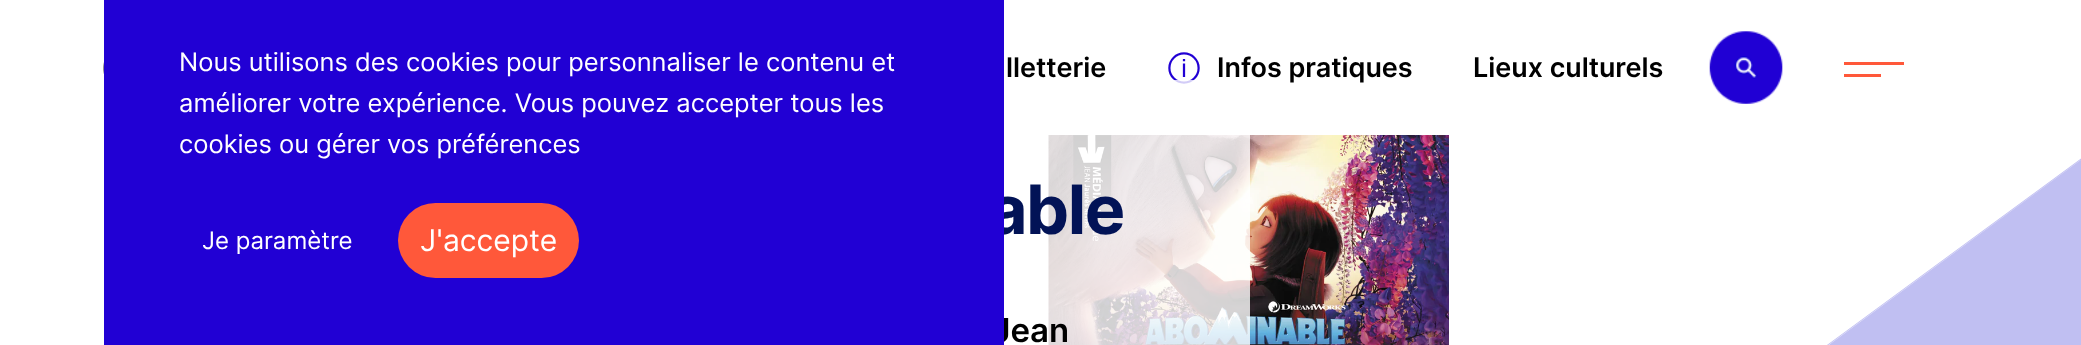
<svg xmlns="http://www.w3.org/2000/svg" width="2081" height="345">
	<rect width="100%" height="100%" fill="#FFFFFF" />
	<text x="1166" y="86" font-family="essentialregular" font-size="36" fill="#2100D4">9</text>
	<text x="1217" y="77" font-family="Inter" font-size="27" font-weight="600" fill="#000000">Infos pratiques</text>
	<image x="1048" y="135" width="401" height="210" href="assets/img3.png" />
	<rect x="209" y="80" width="1041" height="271" rx="6" fill="#FFFFFF" fill-opacity="0.8" />
	<text x="988" y="234" font-family="Inter" font-size="68" font-weight="700" letter-spacing="-1.5" fill="#021356">able</text>
	<text x="992" y="342" font-family="Inter" font-size="33" font-weight="600" fill="#000000">Jean</text>
	<rect x="104" y="0" width="900" height="345" fill="#2100D4" />
	<g font-family="Inter" font-size="25.5" fill="#FFFFFF">
		<text x="179" y="71">Nous utilisons des cookies pour personnaliser le contenu et</text>
		<text x="179" y="112">améliorer votre expérience. Vous pouvez accepter tous les</text>
		<text x="179" y="153">cookies ou gérer vos préférences</text>
	</g>
	<text x="202" y="249" font-family="Inter" font-size="24" fill="#FFFFFF">Je paramètre</text>
	<rect x="398" y="203" width="181" height="75" rx="37.5" fill="#FF583A" />
	<text x="420" y="251" font-family="Inter" font-size="30" fill="#FFFFFF">J'accepte</text>
	<image x="103" y="62" width="1" height="12" href="assets/img1.png" />
	<g font-family="Inter" font-size="27" font-weight="600" fill="#000000">
		<text x="1006" y="77">lletterie</text>
		<text x="1473" y="77">Lieux culturels</text>
	</g>
	<image x="1709" y="31" width="74" height="73" href="assets/img2.png" />
	<rect x="1844" y="62" width="60" height="3" fill="#FF583A" />
	<rect x="1844" y="74" width="37" height="3" fill="#FF583A" />
	<path d="M-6 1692L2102 144L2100 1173L-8 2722ZM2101 145L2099 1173L-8 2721L-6 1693L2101 145M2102 143L-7 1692L-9 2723L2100 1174Z" fill="#C0BFF2" fill-rule="evenodd" />
</svg>
